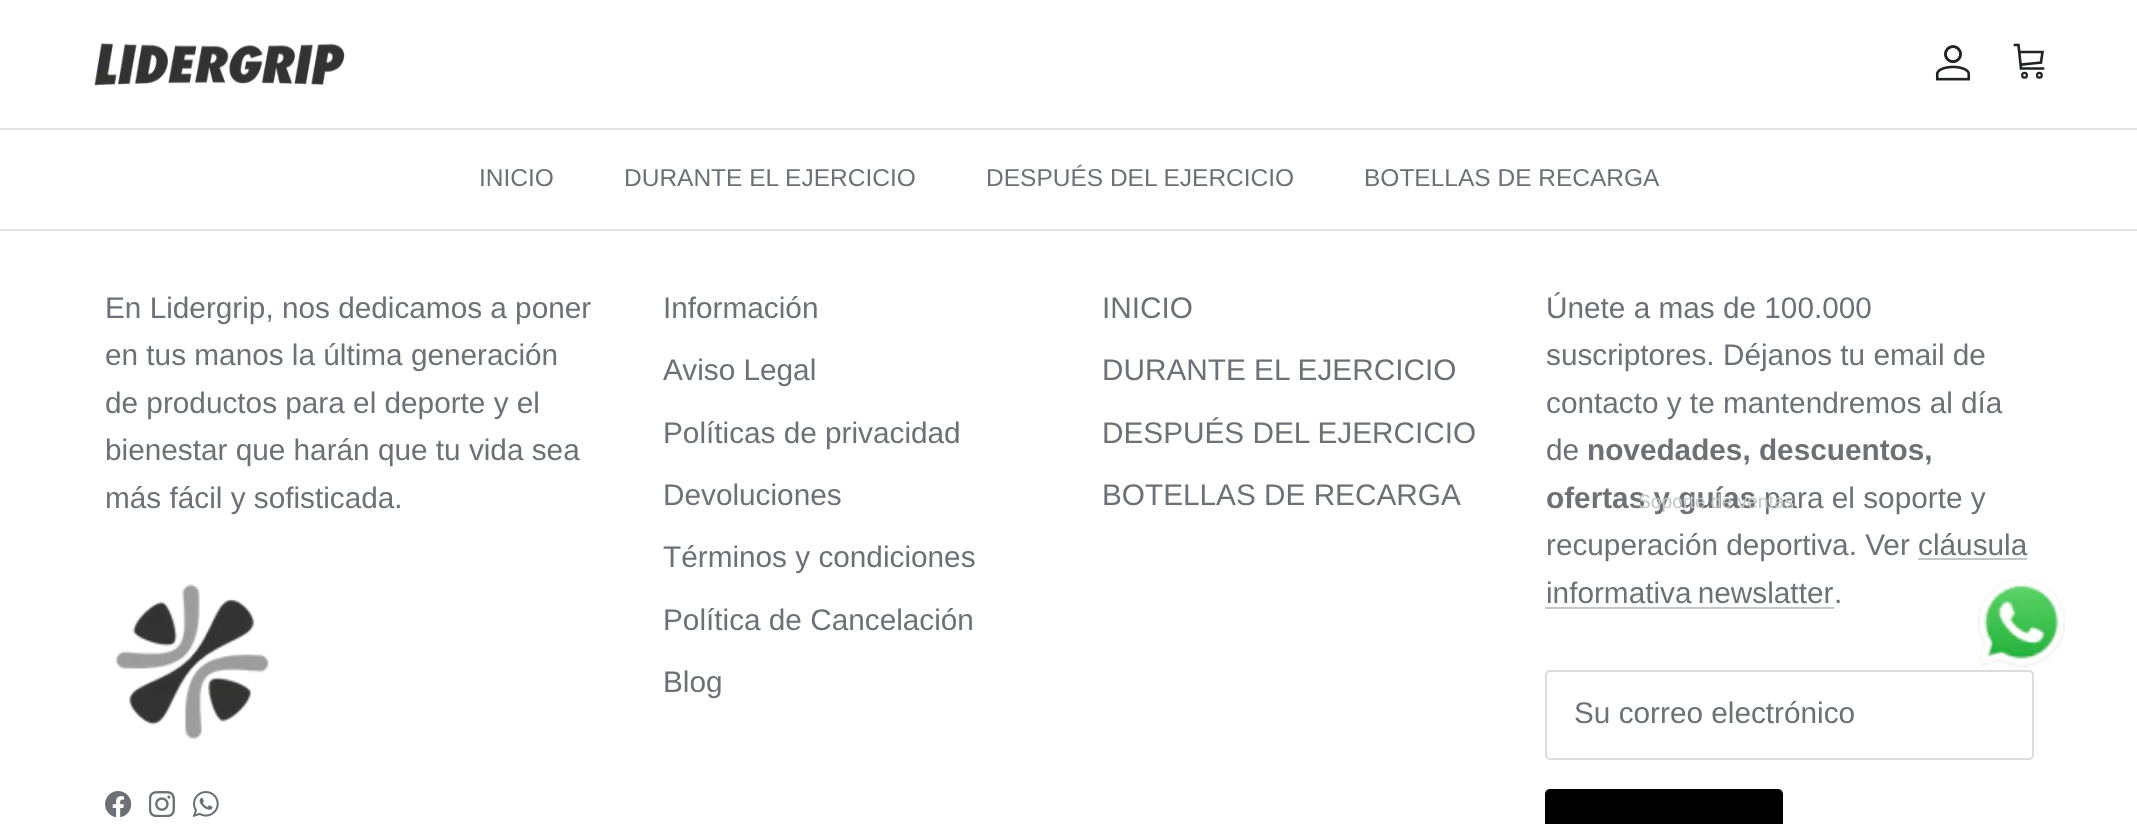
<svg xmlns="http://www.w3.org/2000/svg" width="2137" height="824">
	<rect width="100%" height="100%" fill="#FFFFFF" />
	<rect x="0" y="128" width="2137" height="2" fill="#E2E2E2" />
	<image x="94" y="43" width="251" height="43" href="assets/img1.png" />
	<image x="1935" y="45" width="36" height="36" href="assets/img2.png" />
	<path d="M2015 45H2018.5L2021 68.5H2043M2020 52H2042.5L2041 62.5L2022.5 64.5" fill="none" stroke="#202223" stroke-width="2.6" stroke-linecap="square" />
	<circle cx="2024.5" cy="75.3" r="2.4" fill="none" stroke="#202223" stroke-width="2.2" />
	<circle cx="2039.4" cy="75.3" r="2.4" fill="none" stroke="#202223" stroke-width="2.2" />
	<rect x="0" y="229" width="2137" height="2" fill="#E2E2E2" />
	<g font-family="Liberation Sans" font-size="24.5" fill="#6D7175">
		<text x="479" y="186">INICIO</text>
		<text x="624" y="186">DURANTE EL EJERCICIO</text>
		<text x="986" y="186">DESPUÉS DEL EJERCICIO</text>
		<text x="1364" y="186">BOTELLAS DE RECARGA</text>
	</g>
	<g font-family="Liberation Sans" font-size="29.75" fill="#6D7175">
		<text x="105" y="318">En Lidergrip, nos dedicamos a poner</text>
		<text x="105" y="365">en tus manos la última generación</text>
		<text x="105" y="413">de productos para el deporte y el</text>
		<text x="105" y="460">bienestar que harán que tu vida sea</text>
		<text x="105" y="508">más fácil y sofisticada.</text>
	</g>
	<image x="115" y="584" width="154" height="155" href="assets/img3.png" />
	<image x="105" y="791" width="26" height="26" href="assets/img4.png" />
	<image x="149" y="791" width="26" height="26" href="assets/img5.png" />
	<image x="193" y="791" width="26" height="26" href="assets/img6.png" />
	<g font-family="Liberation Sans" font-size="29.75" fill="#6D7175">
		<text x="663" y="318">Información</text>
		<text x="663" y="380">Aviso Legal</text>
		<text x="663" y="443">Políticas de privacidad</text>
		<text x="663" y="505">Devoluciones</text>
		<text x="663" y="567">Términos y condiciones</text>
		<text x="663" y="630">Política de Cancelación</text>
		<text x="663" y="692">Blog</text>
		<text x="1102" y="318">INICIO</text>
		<text x="1102" y="380">DURANTE EL EJERCICIO</text>
		<text x="1102" y="443">DESPUÉS DEL EJERCICIO</text>
		<text x="1102" y="505">BOTELLAS DE RECARGA</text>
		<text x="1546" y="318">Únete a mas de 100.000</text>
		<text x="1546" y="365">suscriptores. Déjanos tu email de</text>
		<text x="1546" y="413">contacto y te mantendremos al día</text>
		<text x="1546" y="460">de</text>
	</g>
	<g font-family="Liberation Sans" font-size="29.75" font-weight="700" fill="#6D7175">
		<text x="1587" y="460">novedades, descuentos,</text>
		<text x="1546" y="508">ofertas y guías</text>
	</g>
	<g font-family="Liberation Sans" font-size="29.75" fill="#6D7175">
		<text x="1764" y="508">para el soporte y</text>
		<text x="1546" y="555">recuperación deportiva. Ver cláusula</text>
		<text x="1546" y="603" word-spacing="-2">informativa newslatter</text>
	</g>
	<rect x="1918" y="558" width="109" height="2" fill="#C5C6C8" />
	<rect x="1545" y="607" width="289" height="2" fill="#C5C6C8" />
	<text x="1834" y="603" font-family="Liberation Sans" font-size="29.75" fill="#6D7175">.</text>
	<rect x="1546" y="671" width="487" height="88" rx="4" fill="none" stroke="#DBDCDD" stroke-width="2" />
	<text x="1574" y="723" font-family="Liberation Sans" font-size="29.75" fill="#6D7175">Su correo electrónico</text>
	<rect x="1546" y="790" width="236" height="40" rx="4" fill="#000000" stroke="#000000" stroke-width="2" />
	<text x="1638" y="508" font-family="Liberation Sans" font-size="19.25" fill="#C5C6C8">Soporte de ventas</text>
	<image x="1977" y="579" width="88" height="88" href="assets/img7.png" />
</svg>
